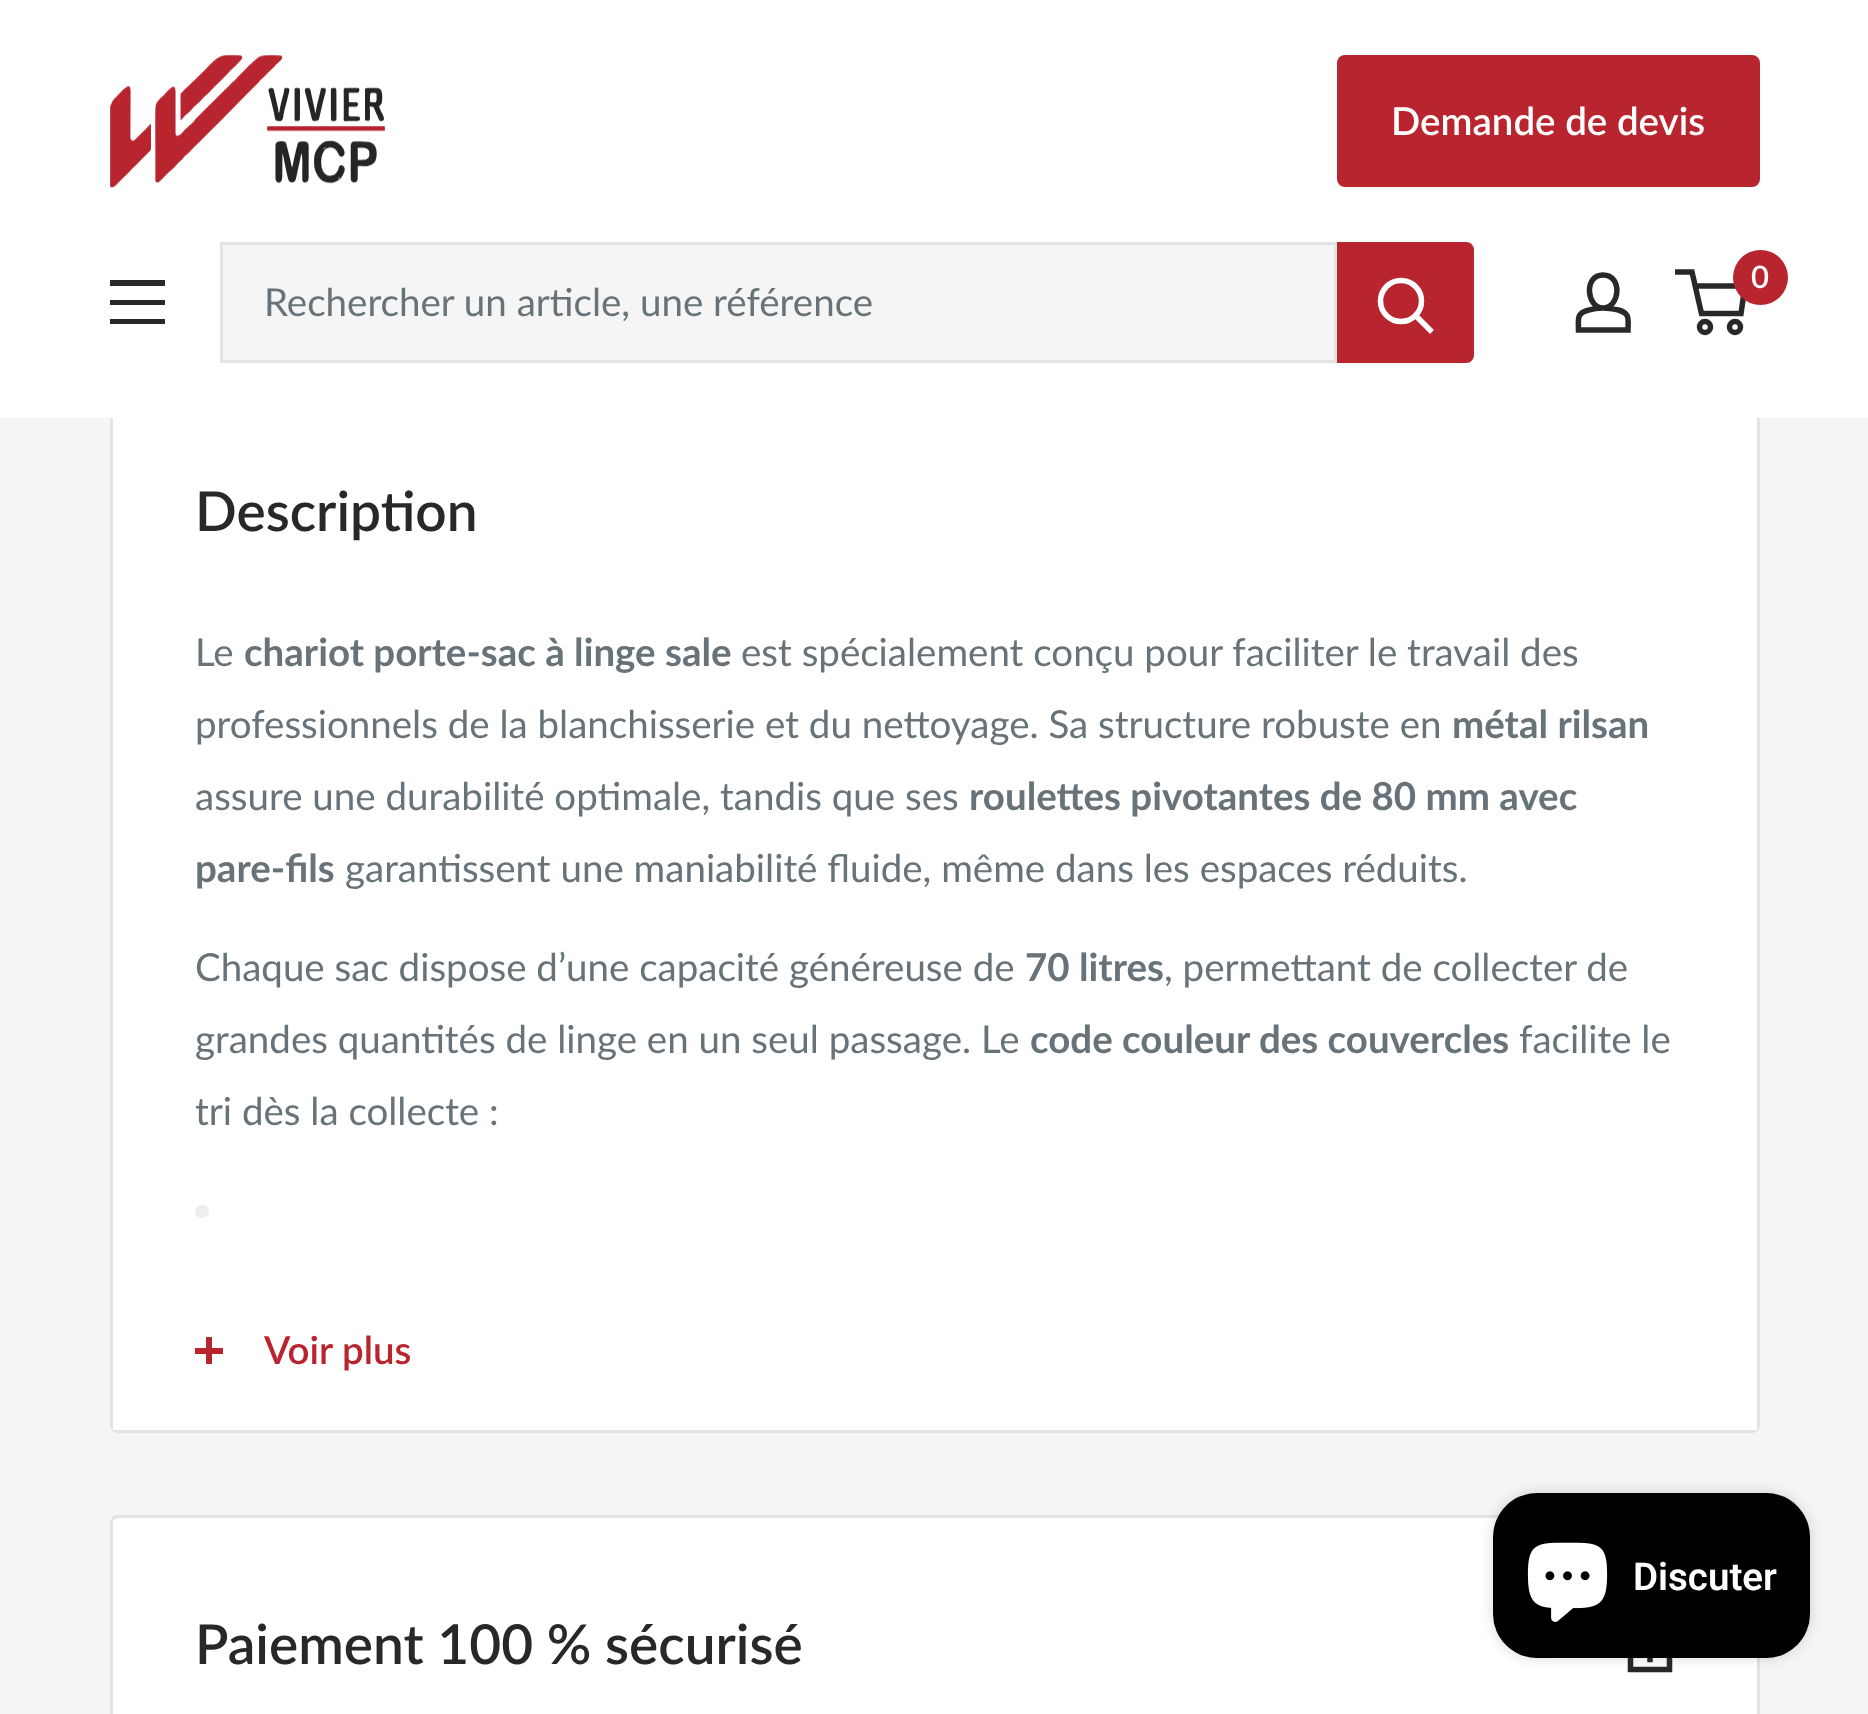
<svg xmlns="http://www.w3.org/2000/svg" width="1868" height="1714">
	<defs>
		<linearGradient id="g1" gradientUnits="userSpaceOnUse" x1="935" y1="1133" x2="935" y2="1271"><stop offset="0" stop-color="#FFFFFF" stop-opacity="0" /><stop offset="0.15" stop-color="#FFFFFF" stop-opacity="0.4" /><stop offset="1" stop-color="#FFFFFF" /></linearGradient>
	</defs>
	<rect width="100%" height="100%" fill="#F5F5F5" />
	<rect x="111.5" y="383.5" width="1647" height="1048" rx="6.5" fill="#FFFFFF" stroke="#E1E3E4" stroke-width="3" />
	<rect x="0" y="0" width="1868" height="418" fill="#FFFFFF" />
	<image x="110" y="55" width="275" height="133" href="assets/img1.png" />
	<rect x="1337" y="55" width="423" height="132" rx="8" fill="#B8252E" />
	<text x="1391" y="135" font-family="Lato" font-size="38.5" font-weight="600" fill="#FFFFFF">Demande de devis</text>
	<path d="M1603 308C1608.5 308 1613.5 309 1618.5 310C1630.5 313.5 1628 319.5 1628 330H1578.5C1578.5 319 1576 313 1589 310C1593.5 308.5 1598.5 308 1603 308ZM1603 308C1586.5 308 1583.5 275 1603 275C1623 275 1620 308 1603 308Z" fill="none" stroke="#282828" stroke-width="5.5" />
	<circle cx="1705" cy="327" r="5.5" fill="none" stroke="#282828" stroke-width="5.5" />
	<circle cx="1735" cy="327" r="5.5" fill="none" stroke="#282828" stroke-width="5.5" />
	<path d="M1695 286H1745L1741 313.5H1701.5L1692 272H1675" fill="none" stroke="#282828" stroke-width="5.5" />
	<circle cx="1760.5" cy="277.5" r="27.5" fill="#B8252E" />
	<text x="1751" y="288" font-family="Lato" font-size="31" font-weight="600" fill="#FFFFFF">0</text>
	<path d="M110 319H165V324H110ZM110 280H165V286H110ZM110 300H165V305H110Z" fill="#282828" fill-rule="evenodd" />
	<rect x="221.5" y="243.5" width="1114" height="118" fill="#F5F5F5" stroke="#E1E3E4" stroke-width="3" />
	<text x="264" y="316" font-family="Lato" font-size="38.5" fill="#677279">Rechercher un article, une référence</text>
	<path d="M1337 242H1466C1470.5 242 1474 245.5 1474 250V355C1474 359.5 1470.5 363 1466 363H1337Z" fill="#B8252E" />
	<path d="M1430 330L1416 316" fill="none" stroke="#FFFFFF" stroke-width="5.5" stroke-linecap="square" />
	<circle cx="1401" cy="301" r="20.5" fill="none" stroke="#FFFFFF" stroke-width="5.5" />
	<text x="195" y="531" font-family="Lato" font-size="55" font-weight="600" fill="#282828">Description</text>
	<text x="195" y="666" font-family="Lato" font-size="38.5" fill="#677279">Le</text>
	<text x="244" y="666" font-family="Lato" font-size="38.5" font-weight="700" fill="#677279">chariot porte-sac à linge sale</text>
	<g font-family="Lato" font-size="38.5" fill="#677279">
		<text x="741" y="666">est spécialement conçu pour faciliter le travail des</text>
		<text x="195" y="738">professionnels de la blanchisserie et du nettoyage. Sa structure robuste en</text>
	</g>
	<text x="1452" y="738" font-family="Lato" font-size="38.5" font-weight="700" fill="#677279">métal rilsan</text>
	<text x="195" y="810" font-family="Lato" font-size="38.5" fill="#677279">assure une durabilité optimale, tandis que ses</text>
	<g font-family="Lato" font-size="38.5" font-weight="700" fill="#677279">
		<text x="969" y="810">roulettes pivotantes de 80 mm avec</text>
		<text x="195" y="882">pare-fils</text>
	</g>
	<g font-family="Lato" font-size="38.5" fill="#677279">
		<text x="345" y="882">garantissent une maniabilité fluide, même dans les espaces réduits.</text>
		<text x="195" y="981">Chaque sac dispose d’une capacité généreuse de</text>
	</g>
	<text x="1025" y="981" font-family="Lato" font-size="38.5" font-weight="700" fill="#677279">70 litres</text>
	<g font-family="Lato" font-size="38.5" fill="#677279">
		<text x="1164" y="981">, permettant de collecter de</text>
		<text x="195" y="1053">grandes quantités de linge en un seul passage. Le</text>
	</g>
	<text x="1030" y="1053" font-family="Lato" font-size="38.5" font-weight="700" fill="#677279">code couleur des couvercles</text>
	<g font-family="Lato" font-size="38.5" fill="#677279">
		<text x="1519" y="1053">facilite le</text>
		<text x="195" y="1125">tri dès la collecte :</text>
	</g>
	<rect x="195" y="1205" width="14" height="13" rx="6.5" fill="#C2C7C9" />
	<rect x="113" y="1426" width="1644" height="4" fill="#FFFFFF" />
	<rect x="195" y="1205" width="14" height="13" fill="url(#g1)" />
	<rect x="206" y="1337" width="6" height="27" fill="#B8252E" />
	<rect x="195" y="1348" width="28" height="6" fill="#B8252E" />
	<text x="264" y="1364" font-family="Lato" font-size="38.5" font-weight="600" fill="#B8252E">Voir plus</text>
	<rect x="111.5" y="1516.5" width="1647" height="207" rx="6.5" fill="#FFFFFF" stroke="#E1E3E4" stroke-width="3" />
	<text x="195" y="1664" font-family="Lato" font-size="55" font-weight="600" fill="#282828">Paiement 100 % sécurisé</text>
	<path d="M1630.5 1634H1669.5V1669.5H1630.5ZM1650 1654.5V1659.5" fill="none" stroke="#282828" stroke-width="5.5" stroke-linecap="square" />
	<rect x="1493" y="1493" width="317" height="165" rx="44" fill="#000000" fill-opacity="0.15" filter="blur(7px)" />
	<rect x="1493" y="1493" width="317" height="165" rx="44" fill="#000000" />
	<image x="1527" y="1542" width="81" height="80" href="assets/img2.png" />
	<text x="1633" y="1590" font-family="Roboto" font-size="38.5" font-weight="600" fill="#FFFFFF">Discuter</text>
</svg>
